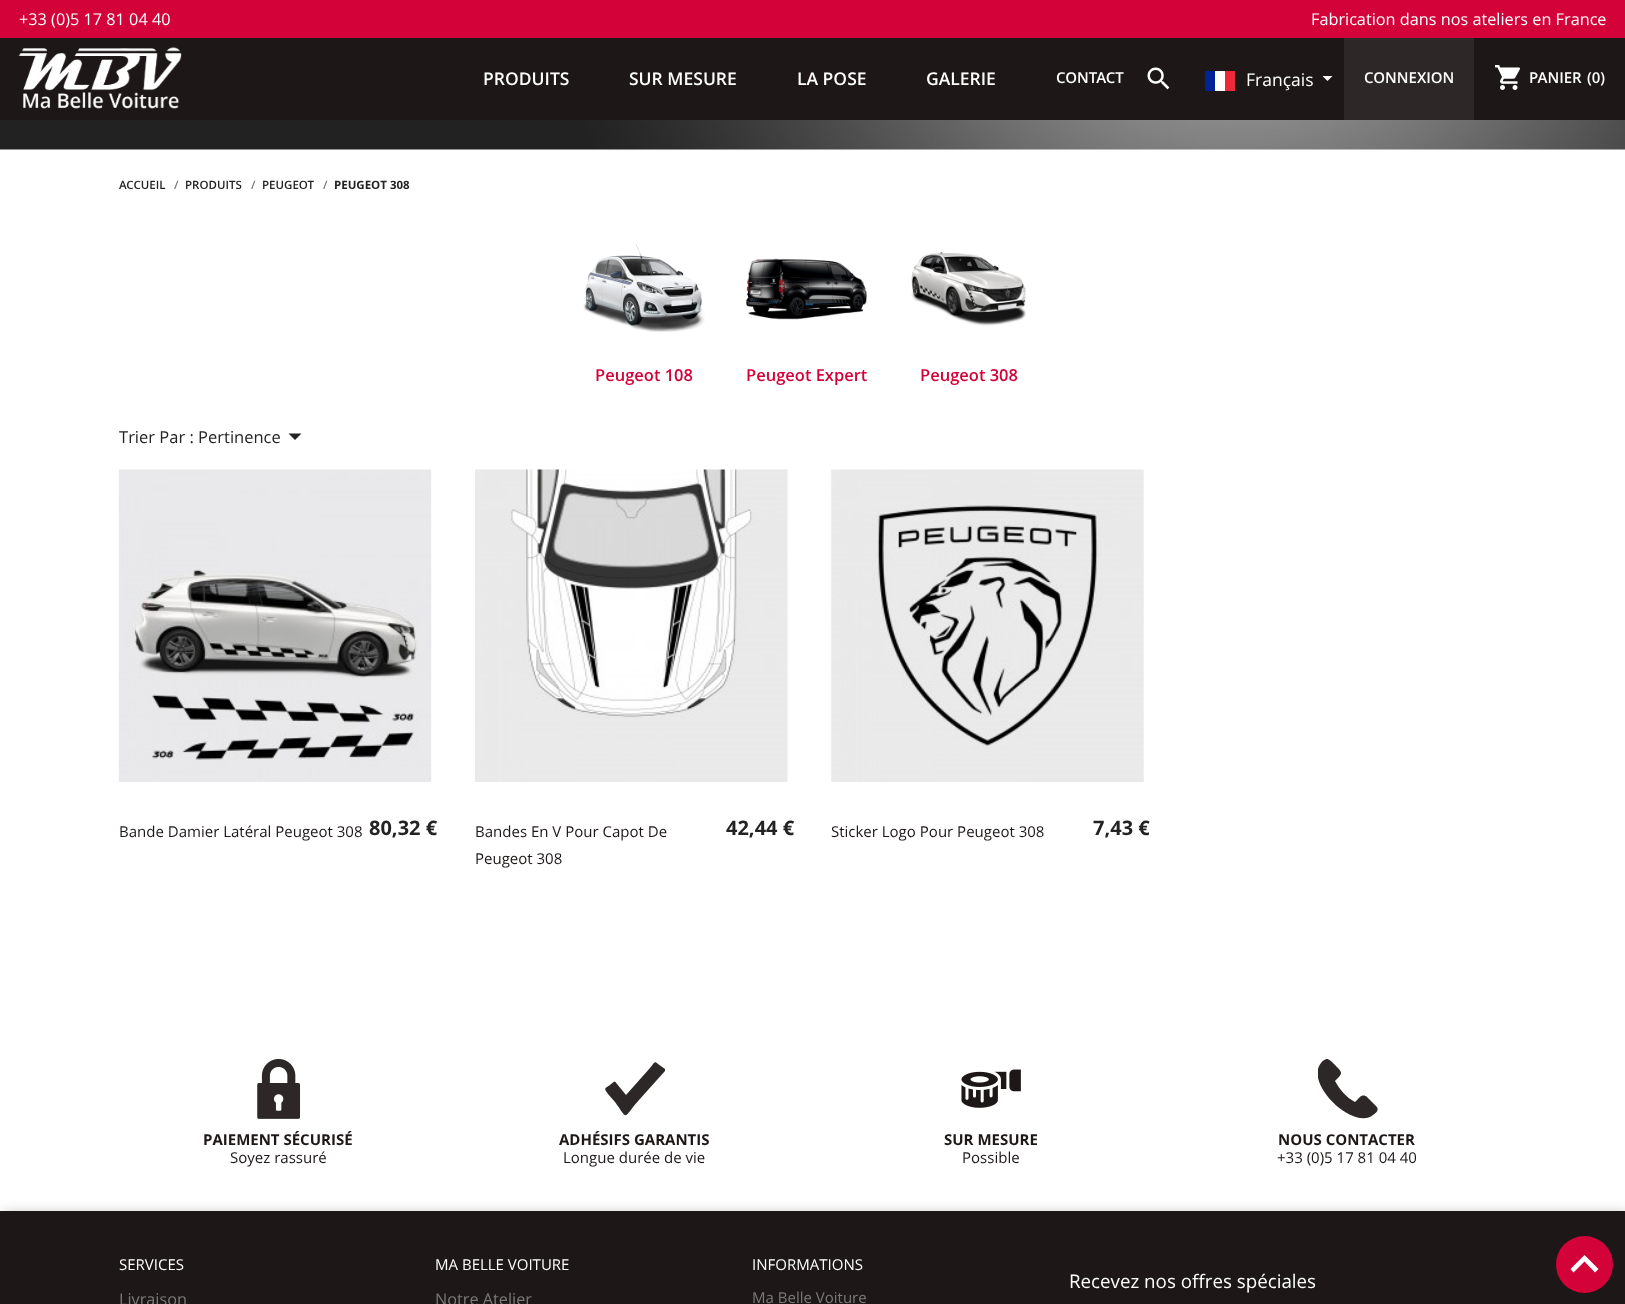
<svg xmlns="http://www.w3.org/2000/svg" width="1625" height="1304">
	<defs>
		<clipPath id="clip1"><rect x="1318" y="1059" width="60" height="60" /></clipPath>
	</defs>
	<rect width="100%" height="100%" fill="#FFFFFF" />
	<rect x="0" y="0" width="1625" height="38" fill="#D30339" />
	<g font-family="Open Sans" font-size="16.25" fill="#FFFFFF">
		<text x="19" y="25">+33 (0)5 17 81 04 40</text>
		<text x="1311" y="25">Fabrication dans nos ateliers en France</text>
	</g>
	<rect x="0" y="38" width="1625" height="82" fill="#1D1717" />
	<image x="18" y="47" width="164" height="62" href="assets/img1.png" />
	<g font-family="Open Sans" font-size="17.5" font-weight="600" fill="#FFFFFF">
		<text x="483" y="85">PRODUITS</text>
		<text x="629" y="85">SUR MESURE</text>
		<text x="797" y="85">LA POSE</text>
		<text x="926" y="85">GALERIE</text>
	</g>
	<text x="1056" y="83" font-family="Open Sans" font-size="15" font-weight="600" fill="#FFFFFF">CONTACT</text>
	<image x="1147" y="67" width="23" height="23" href="assets/img2.png" />
	<rect x="1205" y="71" width="10" height="20" fill="#002395" />
	<rect x="1215" y="71" width="10" height="20" fill="#FFFFFF" />
	<rect x="1225" y="71" width="10" height="20" fill="#ED2939" />
	<text x="1246" y="86" font-family="Open Sans" font-size="17.5" fill="#FFFFFF">Français</text>
	<path d="M1322.5 76H1332.5L1327.5 81Z" fill="#FFFFFF" />
	<rect x="1344" y="38" width="130" height="82" fill="#2D2727" />
	<text x="1364" y="83" font-family="Open Sans" font-size="15" font-weight="600" fill="#FFFFFF">CONNEXION</text>
	<image x="1495" y="65" width="25" height="25" href="assets/img3.png" />
	<g font-family="Open Sans" font-size="15" font-weight="600" fill="#FFFFFF">
		<text x="1529" y="83">PANIER</text>
		<text x="1587" y="83">(0)</text>
	</g>
	<image x="0" y="120" width="1625" height="30" href="assets/img4.png" />
	<text x="119" y="189" font-family="Open Sans" font-size="11.5" font-weight="600" fill="#232323">ACCUEIL</text>
	<text x="174" y="189" font-family="Open Sans" font-size="11.5" font-weight="600" fill="#7A7A7A">/</text>
	<text x="185" y="189" font-family="Open Sans" font-size="11.5" font-weight="600" fill="#232323">PRODUITS</text>
	<text x="251" y="189" font-family="Open Sans" font-size="11.5" font-weight="600" fill="#7A7A7A">/</text>
	<text x="262" y="189" font-family="Open Sans" font-size="11.5" font-weight="600" fill="#232323">PEUGEOT</text>
	<text x="323" y="189" font-family="Open Sans" font-size="11.5" font-weight="600" fill="#7A7A7A">/</text>
	<text x="334" y="189" font-family="Open Sans" font-size="11.5" font-weight="700" fill="#232323">PEUGEOT 308</text>
	<image x="583" y="244" width="122" height="88" href="assets/img5.png" />
	<text x="595" y="381" font-family="Open Sans" font-size="16.5" font-weight="600" fill="#D30339">Peugeot 108</text>
	<image x="746" y="258" width="122" height="62" href="assets/img6.png" />
	<text x="746" y="381" font-family="Open Sans" font-size="16.5" font-weight="600" fill="#D30339">Peugeot Expert</text>
	<image x="911" y="252" width="115" height="74" href="assets/img7.png" />
	<text x="920" y="381" font-family="Open Sans" font-size="16.5" font-weight="600" fill="#D30339">Peugeot 308</text>
	<text x="119" y="443" font-family="Open Sans" font-size="16.5" fill="#232323">Trier Par : Pertinence</text>
	<path d="M288.5 433.5H301.5L295 440Z" fill="#232323" />
	<image x="118" y="469" width="314" height="313" href="assets/img8.png" />
	<text x="119" y="837" font-family="Open Sans" font-size="15" fill="#1D1717">Bande Damier Latéral Peugeot 308</text>
	<text x="369" y="835" font-family="Open Sans" font-size="20" font-weight="700" fill="#232323">80,32 €</text>
	<image x="475" y="469" width="313" height="313" href="assets/img9.png" />
	<g font-family="Open Sans" font-size="15" fill="#1D1717">
		<text x="475" y="837">Bandes En V Pour Capot De</text>
		<text x="475" y="864">Peugeot 308</text>
	</g>
	<text x="726" y="835" font-family="Open Sans" font-size="20" font-weight="700" fill="#232323">42,44 €</text>
	<image x="831" y="469" width="313" height="313" href="assets/img10.png" />
	<text x="831" y="837" font-family="Open Sans" font-size="15" fill="#1D1717">Sticker Logo Pour Peugeot 308</text>
	<text x="1093" y="835" font-family="Open Sans" font-size="20" font-weight="700" fill="#232323">7,43 €</text>
	<rect x="3" y="1214" width="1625" height="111" fill="#000000" fill-opacity="0.3" filter="blur(7px)" />
	<rect x="0" y="1211" width="1625" height="93" fill="#1D1717" />
	<circle cx="1584.5" cy="1264.5" r="28.5" fill="#D30339" />
	<path d="M1584.5 1255L1598.5 1269L1595 1272.5L1584.5 1261.5L1573.5 1272.5L1570.5 1269Z" fill="#FFFFFF" />
	<image x="257" y="1059" width="44" height="60" href="assets/img11.png" />
	<text x="203" y="1145" font-family="Open Sans" font-size="15" font-weight="700" fill="#1D1717">PAIEMENT SÉCURISÉ</text>
	<text x="230" y="1163" font-family="Open Sans" font-size="15" fill="#1D1717">Soyez rassuré</text>
	<path d="M665 1069L658 1064C654 1060 654 1064 650 1068L626 1095L617 1084C614 1080 615 1081 610 1085C604 1089 604 1088 608 1094L615 1102C629 1121 622 1119 639 1100L665 1071C665 1071 665 1070 665 1069Z" fill="#2D2727" />
	<text x="559" y="1145" font-family="Open Sans" font-size="15" font-weight="700" fill="#1D1717">ADHÉSIFS GARANTIS</text>
	<text x="563" y="1163" font-family="Open Sans" font-size="15" fill="#1D1717">Longue durée de vie</text>
	<image x="961" y="1069" width="60" height="39" href="assets/img12.png" />
	<text x="944" y="1145" font-family="Open Sans" font-size="15" font-weight="700" fill="#1D1717">SUR MESURE</text>
	<text x="962" y="1163" font-family="Open Sans" font-size="15" fill="#1D1717">Possible</text>
	<g clip-path="url(#clip1)">
		<path d="M1376 1106L1367 1097C1365 1095 1362 1095 1360 1097L1355 1102C1346 1097 1340 1090 1335 1081C1343 1073 1343 1073 1335 1065C1329 1059 1327 1056 1321 1063C1304 1084 1354 1131 1373 1115C1376 1113 1380 1110 1376 1106Z" fill="#2D2727" />
	</g>
	<text x="1278" y="1145" font-family="Open Sans" font-size="15" font-weight="700" fill="#1D1717">NOUS CONTACTER</text>
	<text x="1277" y="1163" font-family="Open Sans" font-size="15" fill="#1D1717">+33 (0)5 17 81 04 40</text>
	<text x="119" y="1270" font-family="Open Sans" font-size="15" fill="#FFFFFF">SERVICES</text>
	<text x="119" y="1305" font-family="Open Sans" font-size="16.25" fill="#7A7A7A">Livraison</text>
	<text x="435" y="1270" font-family="Open Sans" font-size="15" fill="#FFFFFF">MA BELLE VOITURE</text>
	<text x="435" y="1305" font-family="Open Sans" font-size="16.25" fill="#7A7A7A">Notre Atelier</text>
	<text x="752" y="1270" font-family="Open Sans" font-size="15" fill="#FFFFFF">INFORMATIONS</text>
	<text x="752" y="1303" font-family="Open Sans" font-size="15" fill="#7A7A7A">Ma Belle Voiture</text>
	<text x="1069" y="1288" font-family="Open Sans" font-size="18.75" fill="#FFFFFF">Recevez nos offres spéciales</text>
</svg>
